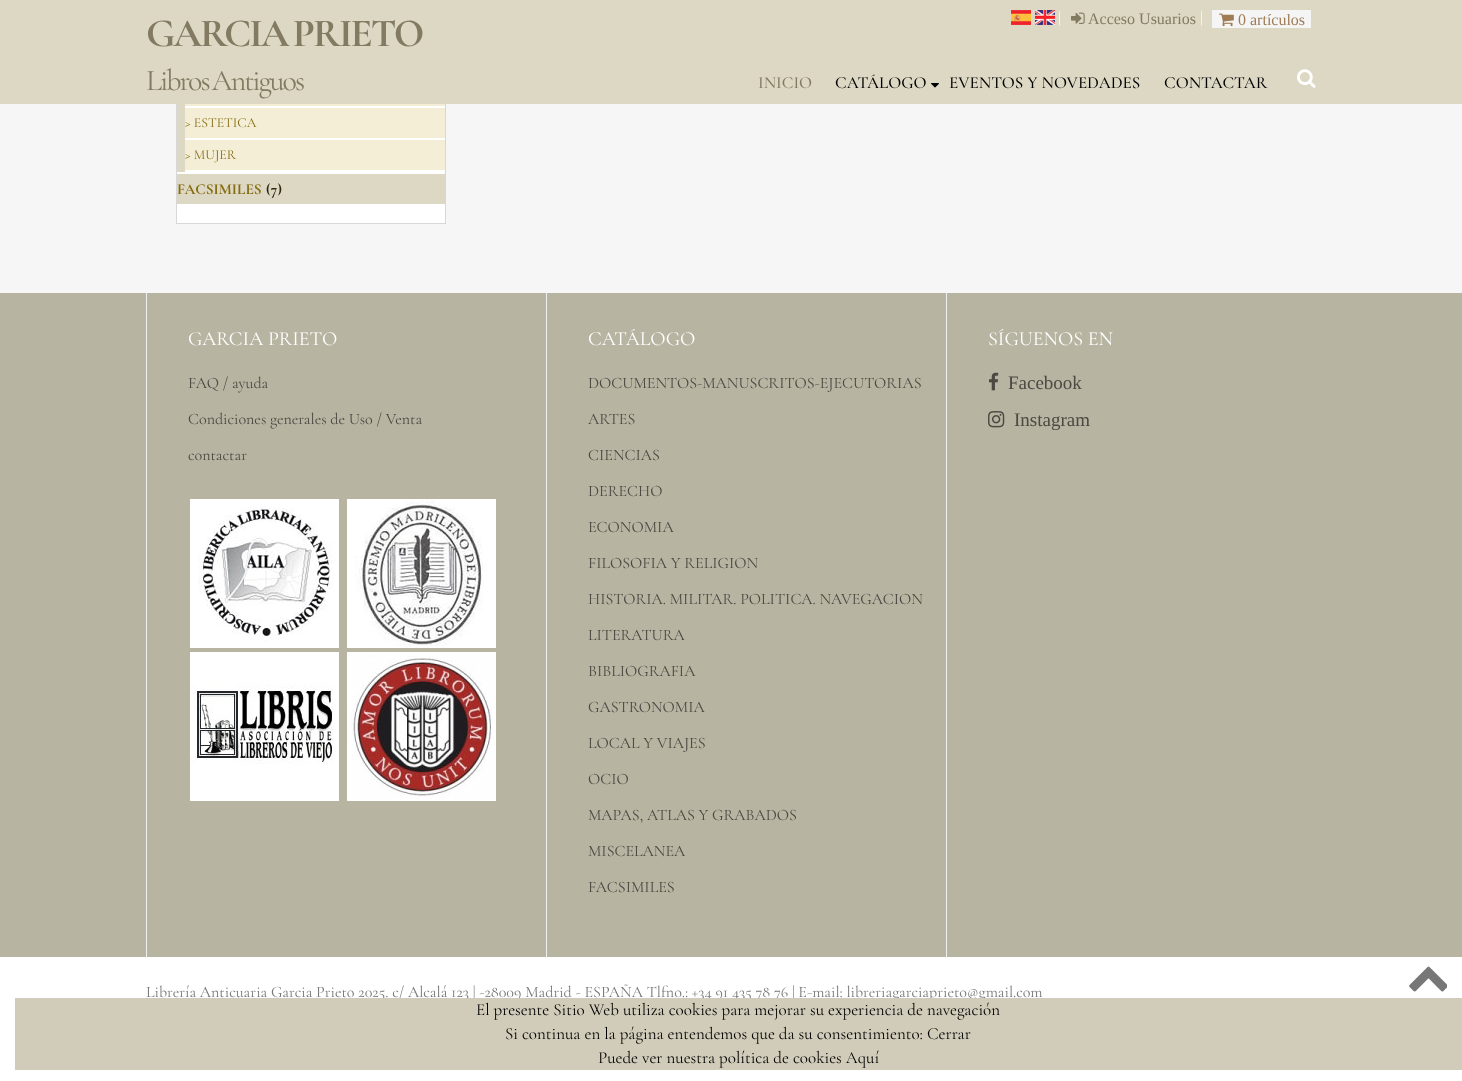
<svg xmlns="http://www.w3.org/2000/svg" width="1462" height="1081">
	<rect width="100%" height="100%" fill="#FFFFFF" />
	<rect x="0" y="104" width="1462" height="189" fill="#F6F6F6" />
	<rect x="177" y="206" width="268" height="17" fill="#FFFFFF" />
	<rect x="176.5" y="-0.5" width="269" height="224" fill="none" stroke="#D7D7D7" />
	<rect x="0" y="0" width="1462" height="104" fill="#DDD8C4" />
	<text x="146" y="46" word-spacing="-2" font-family="Cormorant Garamond" font-size="40" font-weight="700" letter-spacing="-2" fill="#827B62">GARCIA PRIETO</text>
	<text x="146" y="90" word-spacing="-2" font-family="Cormorant Garamond" font-size="30" letter-spacing="-2" fill="#827B62">Libros Antiguos</text>
	<image x="1011" y="10" width="20" height="15" href="assets/img1.png" />
	<image x="1035" y="10" width="20" height="15" href="assets/img2.png" />
	<text x="1058" y="23" font-family="Cormorant Garamond" font-size="16" fill="#FFFFFF">|</text>
	<image x="1071" y="12" width="14" height="12" href="assets/img3.png" />
	<text x="1088" y="24" font-family="Liberation Serif" font-size="16" fill="#827B62">Acceso Usuarios</text>
	<text x="1200" y="23" font-family="Cormorant Garamond" font-size="16" fill="#FFFFFF">|</text>
	<rect x="1212" y="10" width="99" height="18" fill="#F5F5F5" />
	<image x="1219" y="13" width="15" height="14" href="assets/img4.png" />
	<text x="1238" y="25" font-family="Liberation Serif" font-size="16" fill="#9F7C55">0 artículos</text>
	<text x="758" y="88" font-family="Cormorant Garamond" font-size="17" font-weight="500" fill="#827B62">INICIO</text>
	<text x="835" y="88" font-family="Cormorant Garamond" font-size="17" font-weight="500" fill="#000000">CATÁLOGO</text>
	<image x="931" y="83" width="8" height="5" href="assets/img5.png" />
	<g font-family="Cormorant Garamond" font-size="17" font-weight="500" fill="#000000">
		<text x="949" y="88">EVENTOS Y NOVEDADES</text>
		<text x="1164" y="88">CONTACTAR</text>
	</g>
	<image x="1297" y="69" width="19" height="19" href="assets/img6.png" />
	<rect x="177" y="104" width="8" height="68" fill="#DDD8C4" />
	<rect x="177" y="172" width="268" height="2" fill="#FFFFFF" />
	<rect x="185" y="104" width="260" height="2" fill="#F4EED7" />
	<rect x="185" y="106" width="260" height="2" fill="#FFFFFF" />
	<rect x="185" y="108" width="260" height="30" fill="#F4EED7" />
	<rect x="185" y="138" width="260" height="2" fill="#FFFFFF" />
	<text x="185" y="127" font-family="Cormorant Garamond" font-size="13.75" fill="#856C12">&gt; ESTETICA</text>
	<rect x="185" y="140" width="260" height="30" fill="#F4EED7" />
	<rect x="185" y="170" width="260" height="2" fill="#FFFFFF" />
	<text x="185" y="159" font-family="Cormorant Garamond" font-size="13.75" fill="#856C12">&gt; MUJER</text>
	<rect x="177" y="174" width="268" height="30" fill="#DDD8C4" />
	<rect x="177" y="204" width="268" height="2" fill="#FFFFFF" />
	<text x="177" y="194" font-family="Cormorant Garamond" font-size="15.25" font-weight="700" fill="#856C12">FACSIMILES</text>
	<text x="266" y="194" font-family="Cormorant Garamond" font-size="15.25" font-weight="700" fill="#30290E">(7)</text>
	<rect x="0" y="293" width="1462" height="664" fill="#B8B4A2" />
	<rect x="146" y="293" width="1" height="664" fill="#EEEEEE" />
	<text x="188" y="345" font-family="Cormorant Garamond" font-size="20" fill="#FFFFFF">GARCIA PRIETO</text>
	<g font-family="Cormorant Garamond" font-size="16" fill="#4C4842">
		<text x="188" y="388">FAQ / ayuda</text>
		<text x="188" y="424">Condiciones generales de Uso / Venta</text>
		<text x="188" y="460">contactar</text>
	</g>
	<image x="190" y="499" width="149" height="149" href="assets/img7.png" />
	<image x="347" y="499" width="149" height="149" href="assets/img8.png" />
	<image x="190" y="652" width="149" height="149" href="assets/img9.png" />
	<image x="347" y="652" width="149" height="149" href="assets/img10.png" />
	<rect x="546" y="293" width="1" height="664" fill="#EEEEEE" />
	<text x="588" y="345" font-family="Cormorant Garamond" font-size="20" fill="#FFFFFF">CATÁLOGO</text>
	<g font-family="Cormorant Garamond" font-size="16" fill="#4C4842">
		<text x="588" y="388">DOCUMENTOS-MANUSCRITOS-EJECUTORIAS</text>
		<text x="588" y="424">ARTES</text>
		<text x="588" y="460">CIENCIAS</text>
		<text x="588" y="496">DERECHO</text>
		<text x="588" y="532">ECONOMIA</text>
		<text x="588" y="568">FILOSOFIA Y RELIGION</text>
		<text x="588" y="604">HISTORIA. MILITAR. POLITICA. NAVEGACION</text>
		<text x="588" y="640">LITERATURA</text>
		<text x="588" y="676">BIBLIOGRAFIA</text>
		<text x="588" y="712">GASTRONOMIA</text>
		<text x="588" y="748">LOCAL Y VIAJES</text>
		<text x="588" y="784">OCIO</text>
		<text x="588" y="820">MAPAS, ATLAS Y GRABADOS</text>
		<text x="588" y="856">MISCELANEA</text>
		<text x="588" y="892">FACSIMILES</text>
	</g>
	<rect x="946" y="293" width="1" height="664" fill="#EEEEEE" />
	<text x="988" y="345" font-family="Cormorant Garamond" font-size="20" fill="#FFFFFF">SÍGUENOS EN</text>
	<image x="989" y="372" width="10" height="19" href="assets/img11.png" />
	<text x="1008" y="389" font-family="Liberation Serif" font-size="19" fill="#4C4842">Facebook</text>
	<image x="988" y="411" width="17" height="17" href="assets/img12.png" />
	<text x="1014" y="426" font-family="Liberation Serif" font-size="19" fill="#4C4842">Instagram</text>
	<text x="146" y="997" font-family="Cormorant Garamond" font-size="16" fill="#777777">Librería Anticuaria Garcia Prieto 2025. c/ Alcalá 123 | -28009 Madrid - ESPAÑA Tlfno.: +34 91 435 78 76 | E-mail: libreriagarciaprieto@gmail.com</text>
	<image x="1409" y="966" width="38" height="26" href="assets/img13.png" />
	<rect x="15" y="998" width="1447" height="72" fill="#D1CCB9" />
	<g font-family="Cormorant Garamond" font-size="17" fill="#000000">
		<text x="476" y="1015">El presente Sitio Web utiliza cookies para mejorar su experiencia de navegación</text>
		<text x="505" y="1039">Si continua en la página entendemos que da su consentimiento: Cerrar</text>
		<text x="598" y="1063">Puede ver nuestra política de cookies Aquí</text>
	</g>
</svg>
